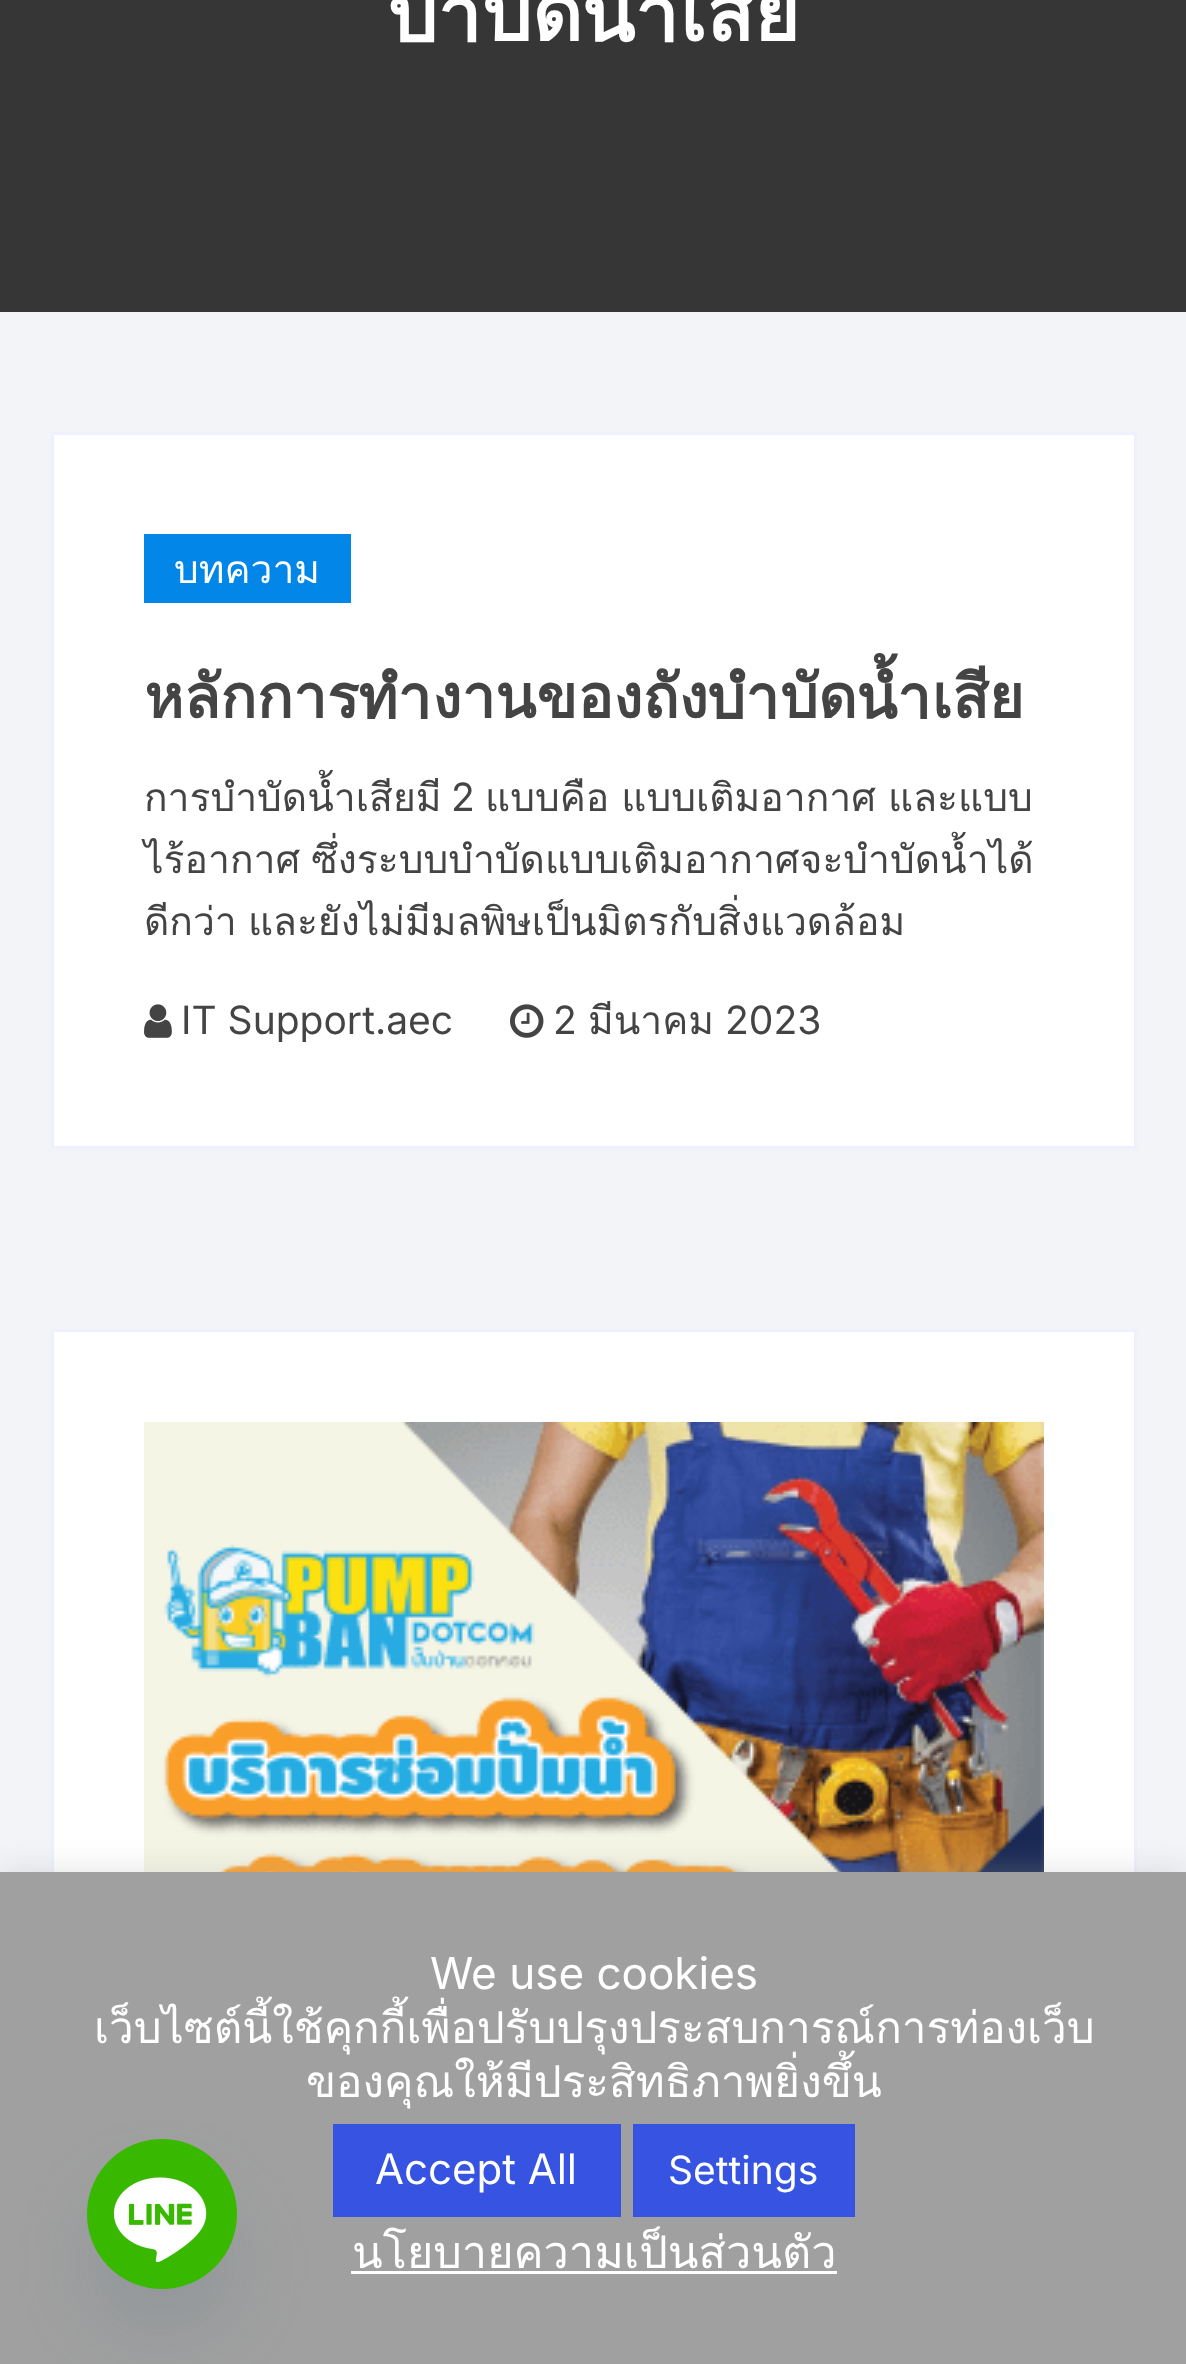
<svg xmlns="http://www.w3.org/2000/svg" width="1186" height="2364">
	<rect width="100%" height="100%" fill="#F3F4F8" />
	<rect x="0" y="0" width="1186" height="312" fill="#363636" />
	<text x="389" y="41" font-family="Loma" font-size="78" font-weight="700" fill="#FFFFFF">บำบัดน้ำเสีย</text>
	<rect x="52.5" y="433.5" width="1083" height="714" fill="#FFFFFF" stroke="#EEF1FD" stroke-width="3" />
	<rect x="144" y="534" width="207" height="69" fill="#0286E7" />
	<text x="174" y="583" font-family="Loma" font-size="39" fill="#FFFFFF">บทความ</text>
	<text x="144" y="718" font-family="Loma" font-size="60" font-weight="700" fill="#444444">หลักการทำงานของถังบำบัดน้ำเสีย</text>
	<text x="144" y="811" font-family="Loma" font-size="39" fill="#444444">การบำบัดน้ำเสียมี</text>
	<text x="451" y="811" font-family="Inter" font-size="39" fill="#444444">2</text>
	<g font-family="Loma" font-size="39" fill="#444444">
		<text x="485" y="811" word-spacing="-1">แบบคือ แบบเติมอากาศ และแบบ</text>
		<text x="144" y="873" word-spacing="-2">ไร้อากาศ ซึ่งระบบบำบัดแบบเติมอากาศจะบำบัดน้ำได้</text>
		<text x="144" y="935" word-spacing="-2">ดีกว่า และยังไม่มีมลพิษเป็นมิตรกับสิ่งแวดล้อม</text>
	</g>
	<image x="144" y="1004" width="28" height="34" href="assets/img1.png" />
	<text x="181" y="1034" font-family="Inter" font-size="39" fill="#444444">IT Support.aec</text>
	<image x="510" y="1004" width="34" height="34" href="assets/img2.png" />
	<text x="553" y="1034" font-family="Inter" font-size="39" fill="#444444">2</text>
	<text x="588" y="1034" font-family="Loma" font-size="39" fill="#444444">มีนาคม</text>
	<text x="725" y="1034" font-family="Inter" font-size="39" fill="#444444">2023</text>
	<rect x="54" y="1332" width="1080" height="540" fill="#FFFFFF" />
	<rect x="52.5" y="1330.5" width="1083" height="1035" fill="none" stroke="#EEF1FD" stroke-width="3" />
	<image x="144" y="1422" width="900" height="450" href="assets/img3.png" />
	<rect x="0" y="1869" width="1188" height="492" fill="#ACABAB" fill-opacity="0.3" filter="blur(15px)" />
	<rect x="0" y="1872" width="1186" height="492" fill="#A0A0A0" />
	<text x="430" y="1989" font-family="Inter" font-size="44" fill="#FFFFFF">We use cookies</text>
	<g font-family="Loma" font-size="44" fill="#FFFFFF">
		<text x="94" y="2043">เว็บไซต์นี้ใช้คุกกี้เพื่อปรับปรุงประสบการณ์การท่องเว็บ</text>
		<text x="306" y="2097">ของคุณให้มีประสิทธิภาพยิ่งขึ้น</text>
	</g>
	<rect x="333" y="2124" width="288" height="93" fill="#3653E2" />
	<text x="375" y="2184" font-family="Inter" font-size="42" fill="#FFFFFF">Accept All</text>
	<rect x="633" y="2124" width="222" height="93" fill="#3653E2" />
	<text x="668" y="2184" font-family="Inter" font-size="39" fill="#FFFFFF">Settings</text>
	<text x="352" y="2268" font-family="Loma" font-size="45" fill="#FFFFFF">นโยบายความเป็นส่วนตัว</text>
	<rect x="351" y="2271" width="486" height="3" fill="#FFFFFF" />
	<rect x="87" y="2187" width="150" height="150" rx="75" fill="#49687E" fill-opacity="0.16" filter="blur(36px)" />
	<image x="87" y="2139" width="150" height="150" href="assets/img4.png" />
</svg>
